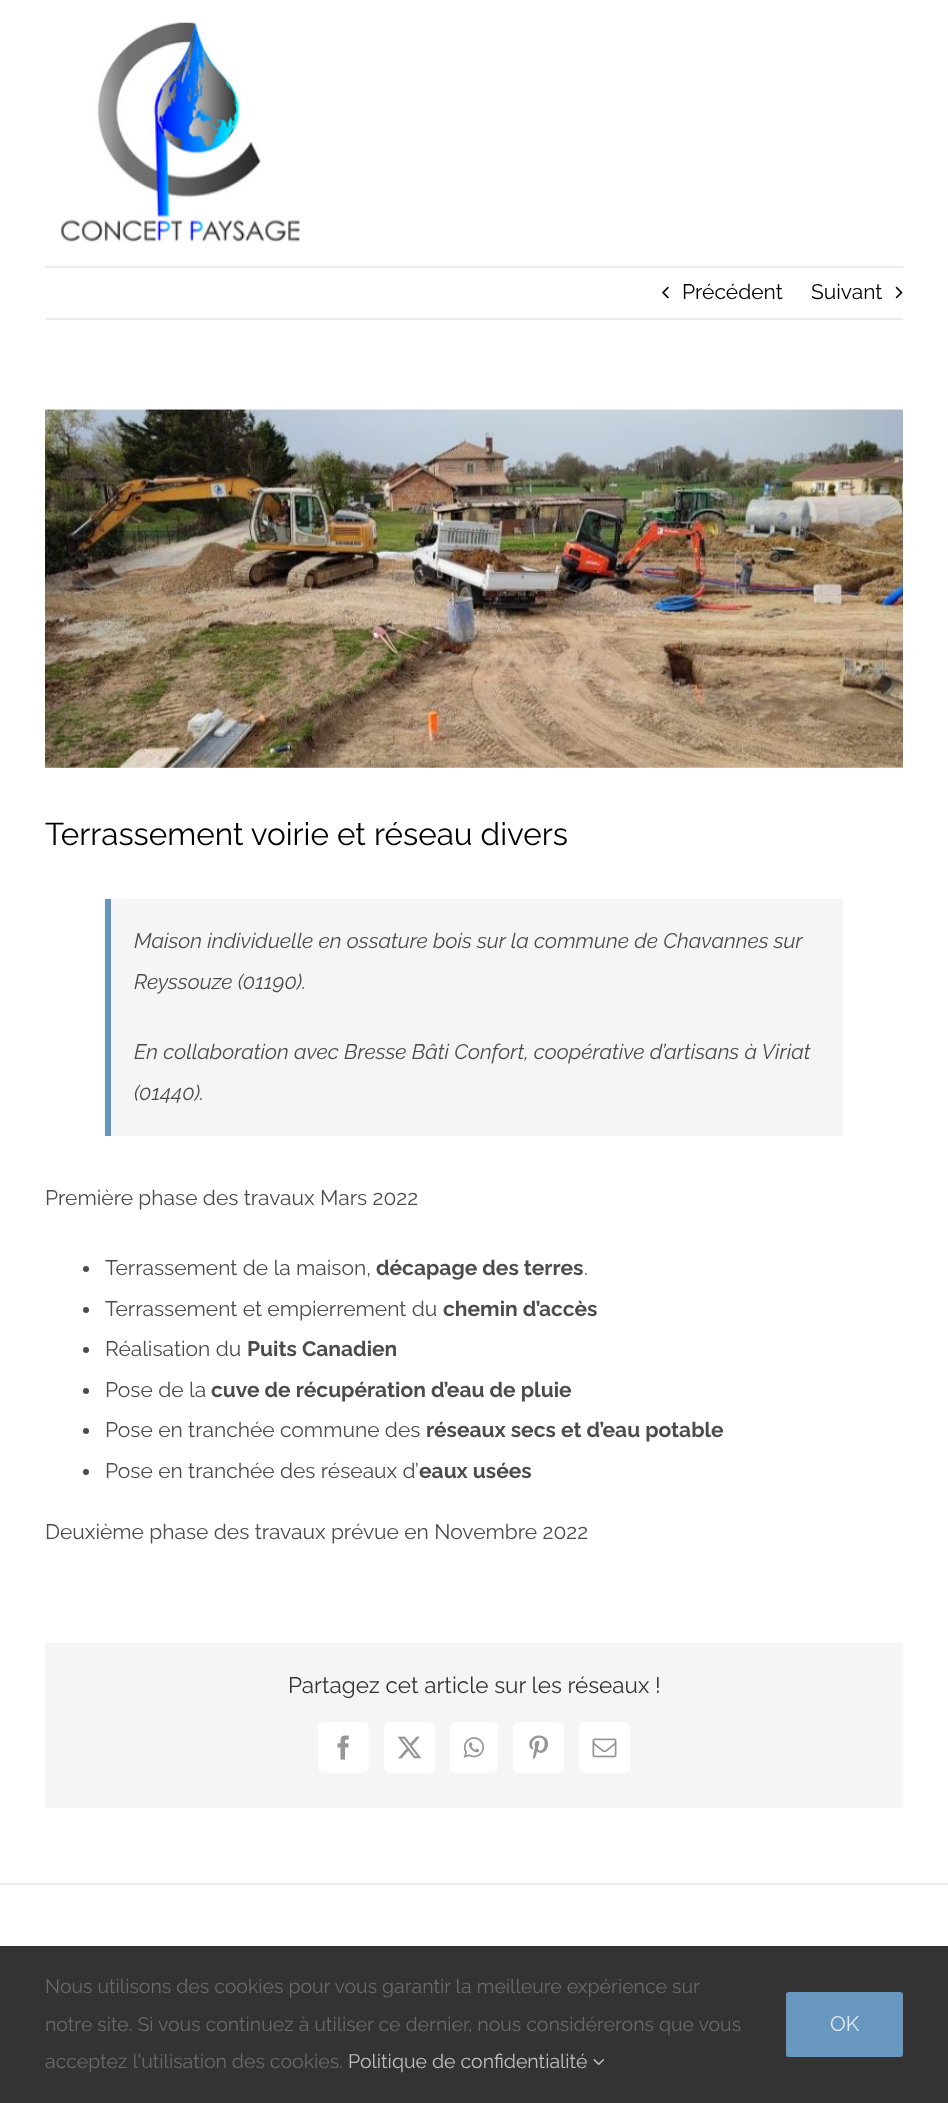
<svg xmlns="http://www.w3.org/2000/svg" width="948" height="2103">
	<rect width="100%" height="100%" fill="#FFFFFF" />
	<image x="60" y="22" width="241" height="220" href="assets/img1.png" />
	<rect x="45" y="266" width="858" height="2" fill="#EDEDED" />
	<rect x="45" y="318" width="858" height="2" fill="#EDEDED" />
	<image x="662" y="286" width="7" height="13" href="assets/img2.png" />
	<g font-family="Raleway" font-size="21" fill="#000000">
		<text x="682" y="299">Précédent</text>
		<text x="811" y="299">Suivant</text>
	</g>
	<image x="895" y="286" width="8" height="13" href="assets/img3.png" />
	<image x="45" y="409" width="858" height="359" href="assets/img4.png" />
	<text x="45" y="845" font-family="Raleway" font-size="31.5" fill="#000000">Terrassement voirie et réseau divers</text>
	<rect x="111" y="899" width="732" height="237" fill="#F5F5F5" />
	<rect x="105" y="899" width="6" height="237" fill="#6796BF" />
	<g font-family="Raleway" font-size="21" font-style="italic" fill="#4C4C4C">
		<text x="134" y="948">Maison individuelle en ossature bois sur la commune de Chavannes sur</text>
		<text x="134" y="989">Reyssouze (01190).</text>
		<text x="134" y="1059">En collaboration avec Bresse Bâti Confort, coopérative d’artisans à Viriat</text>
		<text x="134" y="1100">(01440).</text>
	</g>
	<text x="45" y="1205" font-family="Raleway" font-size="21" fill="#4C4C4C">Première phase des travaux Mars 2022</text>
	<circle cx="86" cy="1269" r="3" fill="#4C4C4C" />
	<text x="105" y="1275" font-family="Raleway" font-size="21" fill="#4C4C4C">Terrassement de la maison,</text>
	<text x="376" y="1275" font-family="Raleway" font-size="21" font-weight="700" fill="#4C4C4C">décapage des terres</text>
	<text x="584" y="1275" font-family="Raleway" font-size="21" fill="#4C4C4C">.</text>
	<circle cx="86" cy="1310" r="3" fill="#4C4C4C" />
	<text x="105" y="1316" font-family="Raleway" font-size="21" fill="#4C4C4C">Terrassement et empierrement du</text>
	<text x="443" y="1316" font-family="Raleway" font-size="21" font-weight="700" fill="#4C4C4C">chemin d’accès</text>
	<circle cx="86" cy="1350" r="3" fill="#4C4C4C" />
	<text x="105" y="1356" font-family="Raleway" font-size="21" fill="#4C4C4C">Réalisation du</text>
	<text x="247" y="1356" font-family="Raleway" font-size="21" font-weight="700" fill="#4C4C4C">Puits Canadien</text>
	<circle cx="86" cy="1391" r="3" fill="#4C4C4C" />
	<text x="105" y="1397" font-family="Raleway" font-size="21" fill="#4C4C4C">Pose de la</text>
	<text x="211" y="1397" font-family="Raleway" font-size="21" font-weight="700" fill="#4C4C4C">cuve de récupération d’eau de pluie</text>
	<circle cx="86" cy="1431" r="3" fill="#4C4C4C" />
	<text x="105" y="1437" font-family="Raleway" font-size="21" fill="#4C4C4C">Pose en tranchée commune des</text>
	<text x="426" y="1437" font-family="Raleway" font-size="21" font-weight="700" fill="#4C4C4C">réseaux secs et d’eau potable</text>
	<circle cx="86" cy="1472" r="3" fill="#4C4C4C" />
	<text x="105" y="1478" font-family="Raleway" font-size="21" fill="#4C4C4C">Pose en tranchée des réseaux d’</text>
	<text x="419" y="1478" font-family="Raleway" font-size="21" font-weight="700" fill="#4C4C4C">eaux usées</text>
	<text x="45" y="1539" font-family="Raleway" font-size="21" fill="#4C4C4C">Deuxième phase des travaux prévue en Novembre 2022</text>
	<rect x="45" y="1643" width="858" height="165" fill="#F5F5F5" />
	<text x="288" y="1693" font-family="Raleway" font-size="22.5" fill="#333333">Partagez cet article sur les réseaux !</text>
	<rect x="318" y="1722" width="51" height="51" rx="6" fill="#FFFFFF" />
	<image x="337" y="1735" width="12" height="25" href="assets/img5.png" />
	<rect x="384" y="1722" width="51" height="51" rx="6" fill="#FFFFFF" />
	<image x="397" y="1736" width="25" height="23" href="assets/img6.png" />
	<rect x="450" y="1722" width="48" height="51" rx="6" fill="#FFFFFF" />
	<image x="463" y="1737" width="22" height="21" href="assets/img7.png" />
	<rect x="513" y="1722" width="51" height="51" rx="6" fill="#FFFFFF" />
	<image x="529" y="1735" width="19" height="25" href="assets/img8.png" />
	<rect x="579" y="1722" width="51" height="51" rx="6" fill="#FFFFFF" />
	<image x="592" y="1738" width="25" height="20" href="assets/img9.png" />
	<rect x="0" y="1883" width="948" height="2" fill="#EBEBEB" />
	<rect x="0" y="1946" width="948" height="157" fill="#333333" />
	<g font-family="Raleway" font-size="19.5" fill="#696969">
		<text x="45" y="1993">Nous utilisons des cookies pour vous garantir la meilleure expérience sur</text>
		<text x="45" y="2031">notre site. Si vous continuez à utiliser ce dernier, nous considérerons que vous</text>
		<text x="45" y="2068">acceptez l'utilisation des cookies.</text>
	</g>
	<text x="348" y="2068" font-family="Raleway" font-size="19.5" fill="#BFBFBF">Politique de confidentialité</text>
	<image x="593" y="2058" width="12" height="8" href="assets/img10.png" />
	<rect x="786" y="1992" width="117" height="65" rx="3" fill="#6796BF" />
	<text x="830" y="2031" font-family="Raleway" font-size="21" fill="#E1EAF2">OK</text>
</svg>
